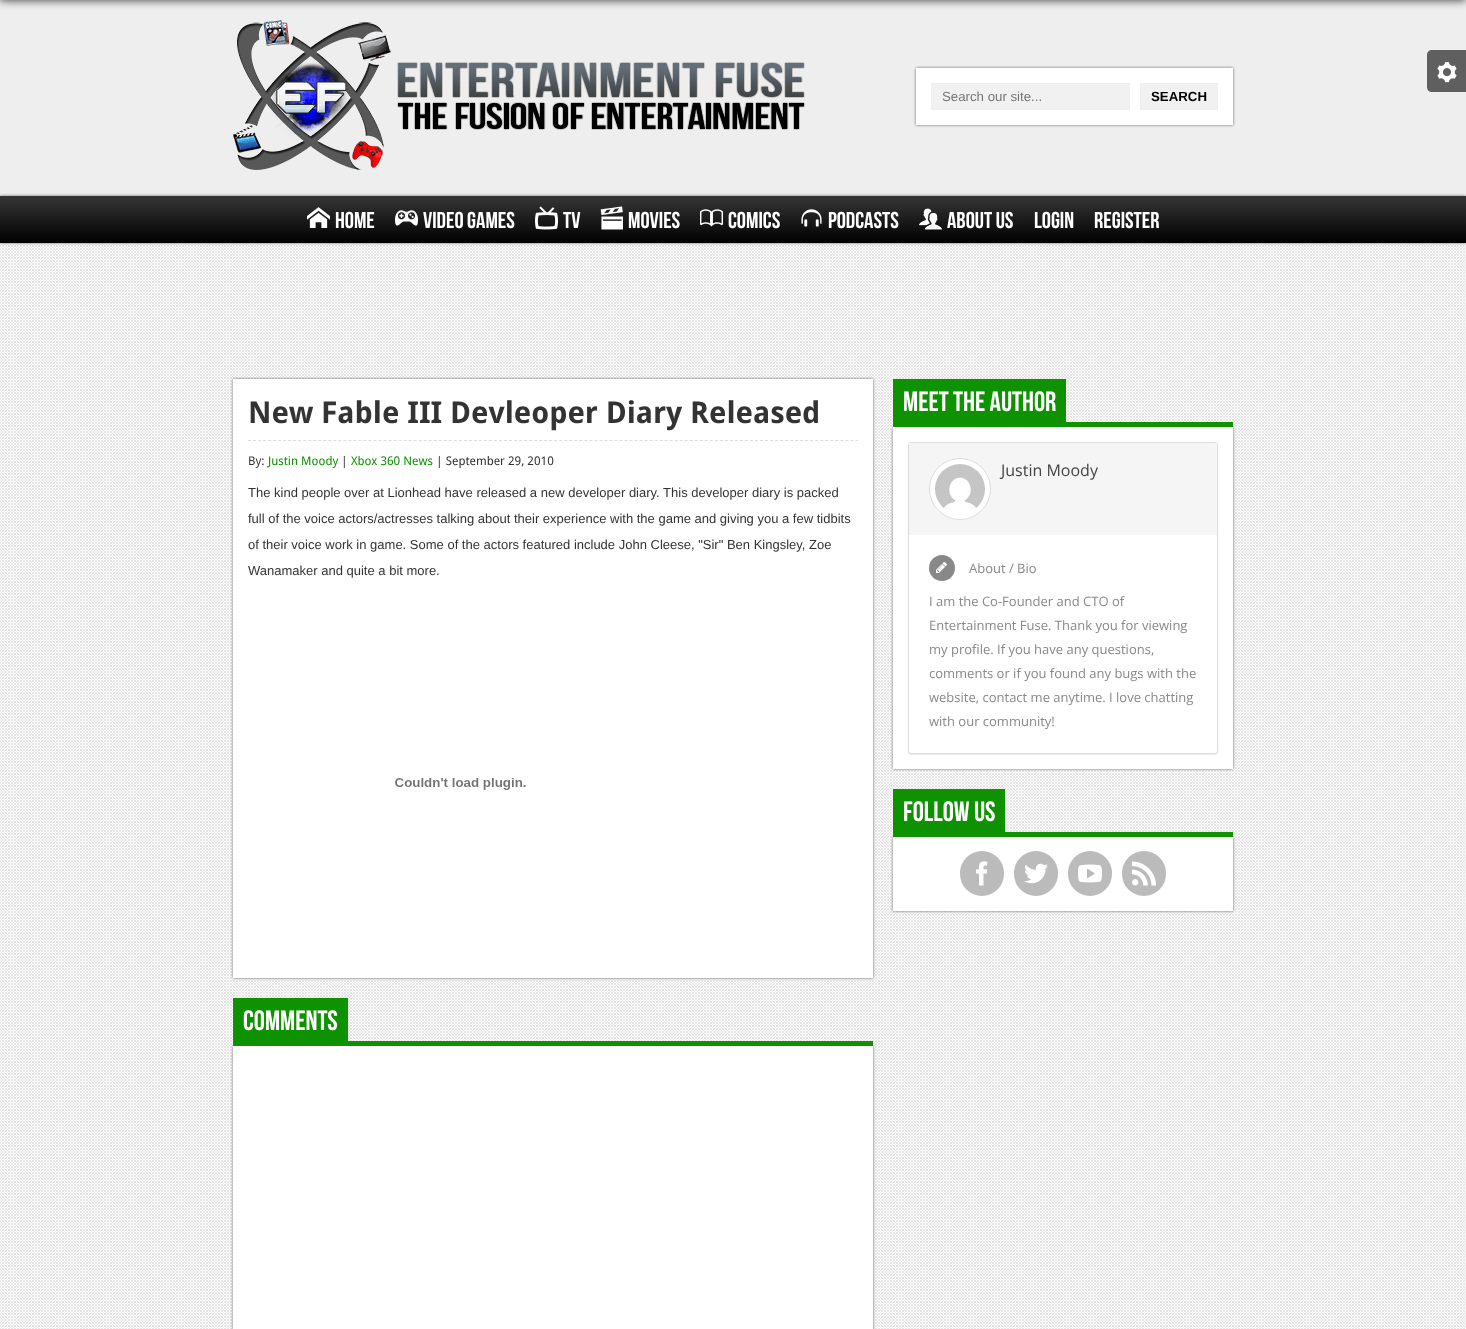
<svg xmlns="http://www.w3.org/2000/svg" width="1466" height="1329">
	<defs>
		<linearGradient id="g1" gradientUnits="userSpaceOnUse" x1="733" y1="196" x2="733" y2="243"><stop offset="0" stop-color="#363636" /><stop offset="1" stop-color="#000000" /></linearGradient>
	</defs>
	<rect width="100%" height="100%" fill="#FFFFFF" />
	<image x="0" y="243" width="1466" height="1086" href="assets/img1.png" />
	<rect x="0" y="0" width="1466" height="196" fill="#EEEEEE" />
	<rect x="0" y="-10" width="1466" height="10" fill="#000000" fill-opacity="0.8" filter="blur(5px)" />
	<path d="M1432 50H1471V92H1432C1429 92 1427 90 1427 87V55C1427 52 1429 50 1432 50Z" fill="#5F5F5F" />
	<image x="1437" y="62" width="20" height="21" href="assets/img2.png" />
	<image x="233" y="20" width="572" height="150" href="assets/img3.png" />
	<rect x="916" y="68" width="317" height="57" fill="#666666" filter="blur(1.5px)" />
	<rect x="916" y="68" width="317" height="57" fill="#FFFFFF" />
	<rect x="931.5" y="83.5" width="198" height="26" fill="#F1F1F1" stroke="#EEEEEE" />
	<text x="942" y="101" font-family="Liberation Sans" font-size="13.25" fill="#757575">Search our site...</text>
	<rect x="1140.5" y="83.5" width="77" height="26" fill="#F1F1F1" stroke="#EEEEEE" />
	<text x="1151" y="101" font-family="Liberation Sans" font-size="13.25" font-weight="700" fill="#000000">SEARCH</text>
	<rect x="0" y="196" width="1466" height="47" fill="#666666" filter="blur(1.5px)" />
	<rect x="0" y="196" width="1466" height="47" fill="url(#g1)" />
	<image x="307" y="207" width="23" height="21" href="assets/img4.png" />
	<text x="335" y="228" font-family="Bebas Neue" font-size="23" fill="#FFFFFF">Home</text>
	<image x="395" y="210" width="23" height="16" href="assets/img5.png" />
	<text x="423" y="228" font-family="Bebas Neue" font-size="23" fill="#FFFFFF">Video Games</text>
	<image x="535" y="206" width="23" height="24" href="assets/img6.png" />
	<text x="563" y="228" font-family="Bebas Neue" font-size="23" fill="#FFFFFF">TV</text>
	<image x="600" y="206" width="23" height="24" href="assets/img7.png" />
	<text x="628" y="228" font-family="Bebas Neue" font-size="23" fill="#FFFFFF">Movies</text>
	<image x="700" y="209" width="23" height="18" href="assets/img8.png" />
	<text x="728" y="228" font-family="Bebas Neue" font-size="23" fill="#FFFFFF">Comics</text>
	<image x="801" y="209" width="21" height="18" href="assets/img9.png" />
	<text x="828" y="228" font-family="Bebas Neue" font-size="23" fill="#FFFFFF">Podcasts</text>
	<image x="919" y="208" width="23" height="22" href="assets/img10.png" />
	<g font-family="Bebas Neue" font-size="23" fill="#FFFFFF">
		<text x="947" y="228">About Us</text>
		<text x="1034" y="228">Login</text>
		<text x="1094" y="228">Register</text>
	</g>
	<rect x="233" y="379" width="640" height="599" fill="#666666" filter="blur(1.5px)" />
	<rect x="233" y="379" width="640" height="599" fill="#FFFFFF" />
	<path d="M248 440.5H858" fill="none" stroke="#DDDDDD" stroke-dasharray="3 2.02" />
	<text x="248" y="423" font-family="Droid Sans" font-size="30" font-weight="700" fill="#333333">New Fable III Devleoper Diary Released</text>
	<text x="248" y="465" font-family="Droid Sans" font-size="12" fill="#333333">By:</text>
	<text x="268" y="465" font-family="Droid Sans" font-size="12" fill="#0E9200">Justin Moody</text>
	<text x="341" y="465" font-family="Droid Sans" font-size="12" fill="#333333">|</text>
	<text x="351" y="465" font-family="Droid Sans" font-size="12" fill="#0E9200">Xbox 360 News</text>
	<text x="436" y="465" font-family="Droid Sans" font-size="12" fill="#333333">| September 29, 2010</text>
	<g font-family="Liberation Sans" font-size="13" fill="#333333">
		<text x="248" y="497">The kind people over at Lionhead have released a new developer diary. This developer diary is packed</text>
		<text x="248" y="523">full of the voice actors/actresses talking about their experience with the game and giving you a few tidbits</text>
		<text x="248" y="549">of their voice work in game. Some of the actors featured include John Cleese, "Sir" Ben Kingsley, Zoe</text>
		<text x="248" y="575">Wanamaker and quite a bit more.</text>
	</g>
	<image x="395" y="778" width="131" height="12" href="assets/img11.png" />
	<rect x="233" y="1046" width="640" height="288" fill="#666666" filter="blur(1.5px)" />
	<rect x="233" y="1041" width="640" height="5" fill="#0E9200" />
	<rect x="233" y="998" width="115" height="43" fill="#0E9200" />
	<text x="243" y="1030" font-family="Bebas Neue" font-size="28" fill="#FFFFFF">Comments</text>
	<rect x="233" y="1046" width="640" height="283" fill="#FFFFFF" />
	<rect x="893" y="427" width="340" height="342" fill="#666666" filter="blur(1.5px)" />
	<rect x="893" y="422" width="340" height="5" fill="#0E9200" />
	<rect x="893" y="379" width="173" height="43" fill="#0E9200" />
	<text x="903" y="411" font-family="Bebas Neue" font-size="28" fill="#FFFFFF">Meet the Author</text>
	<rect x="893" y="427" width="340" height="342" fill="#FFFFFF" />
	<rect x="909" y="444" width="308" height="310" rx="2" fill="#CCCCCC" filter="blur(1px)" />
	<rect x="908.5" y="442.5" width="309" height="311" rx="2.5" fill="#FFFFFF" stroke="#DDDDDD" />
	<rect x="909" y="443" width="308" height="92" fill="#F5F5F5" />
	<circle cx="960" cy="489" r="30.5" fill="#FFFFFF" stroke="#DDDDDD" />
	<image x="935" y="464" width="50" height="47" href="assets/img12.png" />
	<text x="1001" y="476" font-family="Open Sans" font-size="16" fill="#444444">Justin Moody</text>
	<circle cx="942" cy="568" r="13" fill="#888888" />
	<image x="936" y="562" width="11" height="11" href="assets/img13.png" />
	<g font-family="Open Sans" font-size="13" fill="#888888">
		<text x="969" y="573">About / Bio</text>
		<text x="929" y="606">I am the Co-Founder and CTO of</text>
		<text x="929" y="630">Entertainment Fuse. Thank you for viewing</text>
		<text x="929" y="654">my profile. If you have any questions,</text>
		<text x="929" y="678">comments or if you found any bugs with the</text>
		<text x="929" y="702">website, contact me anytime. I love chatting</text>
		<text x="929" y="726">with our community!</text>
	</g>
	<rect x="893" y="837" width="340" height="74" fill="#666666" filter="blur(1.5px)" />
	<rect x="893" y="832" width="340" height="5" fill="#0E9200" />
	<rect x="893" y="789" width="112" height="43" fill="#0E9200" />
	<text x="903" y="821" font-family="Bebas Neue" font-size="28" fill="#FFFFFF">Follow Us</text>
	<rect x="893" y="837" width="340" height="74" fill="#FFFFFF" />
	<rect x="960" y="851" width="44" height="45" rx="22" fill="#BBBBBB" />
	<image x="976" y="861" width="12" height="25" href="assets/img14.png" />
	<rect x="1014" y="851" width="44" height="45" rx="22" fill="#BBBBBB" />
	<image x="1024" y="863" width="24" height="21" href="assets/img15.png" />
	<rect x="1068" y="851" width="44" height="45" rx="22" fill="#BBBBBB" />
	<image x="1078" y="864" width="24" height="19" href="assets/img16.png" />
	<rect x="1122" y="851" width="44" height="45" rx="22" fill="#BBBBBB" />
	<image x="1132" y="861" width="24" height="25" href="assets/img17.png" />
</svg>
